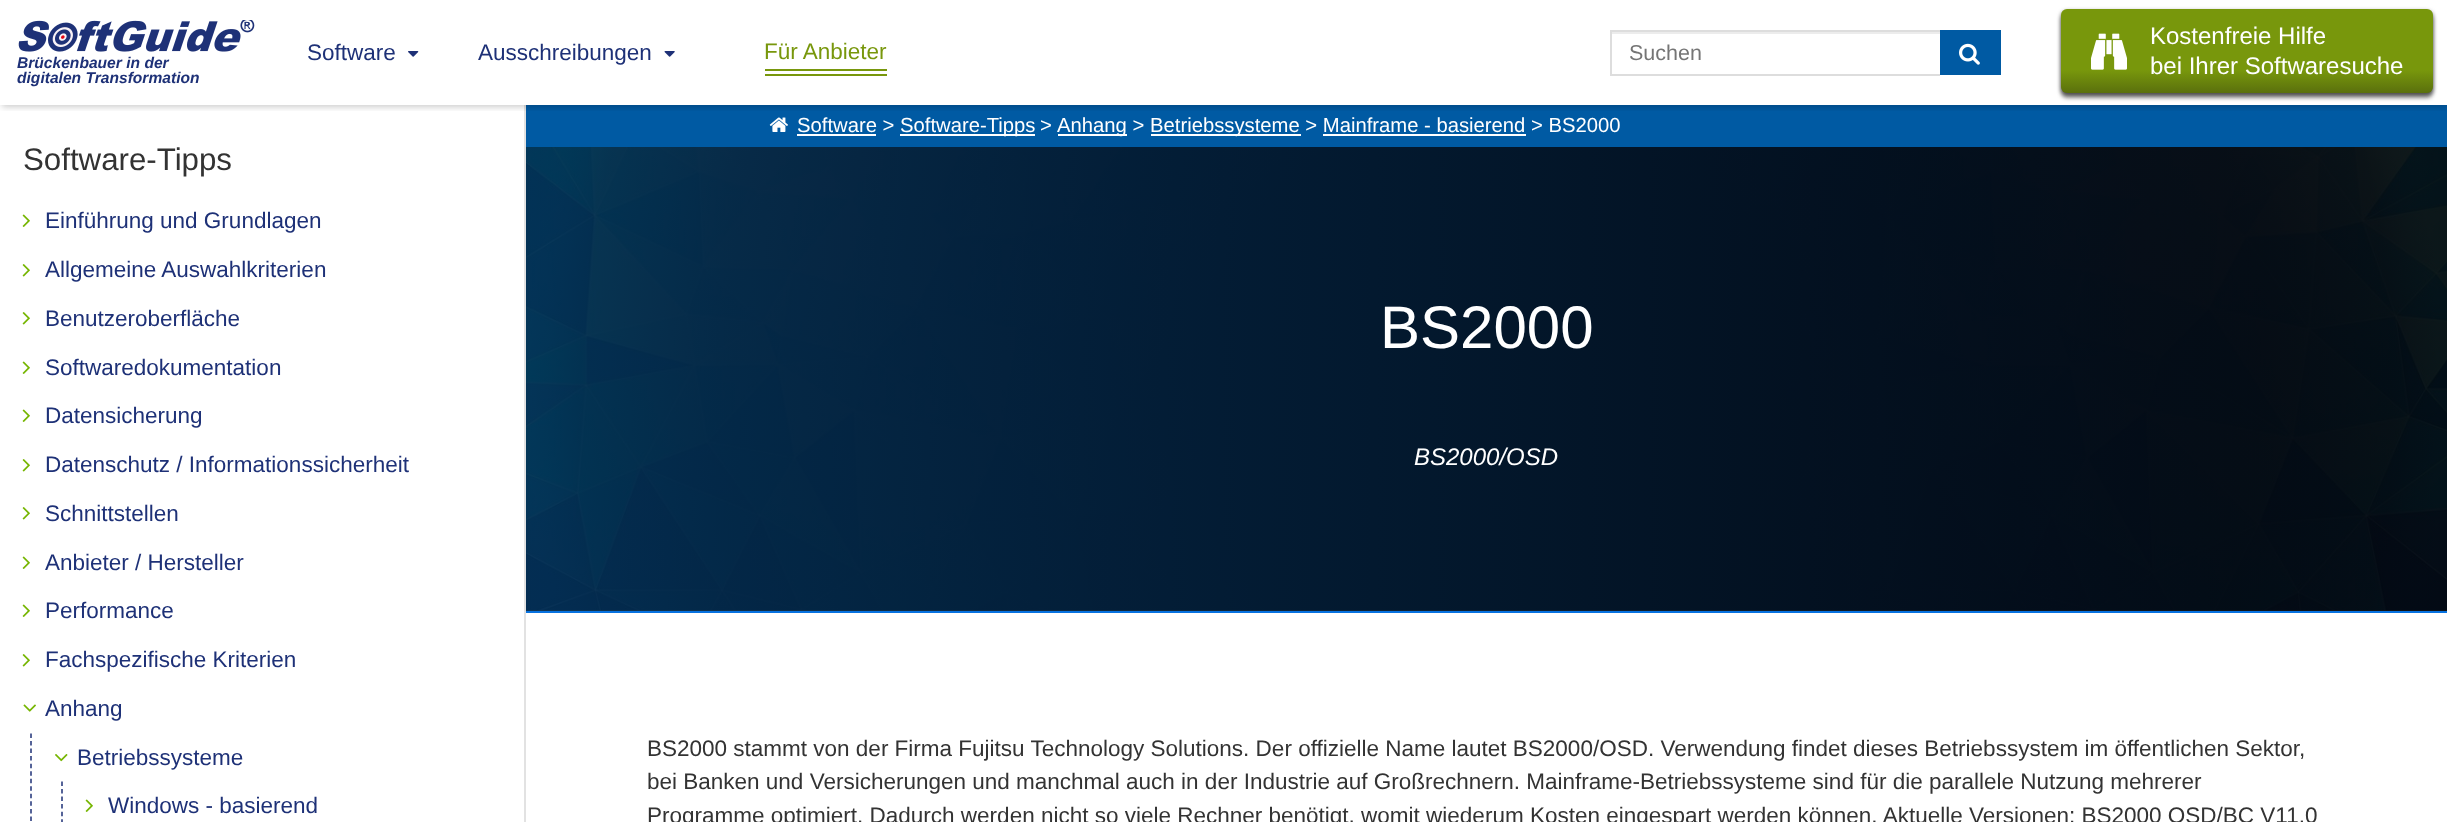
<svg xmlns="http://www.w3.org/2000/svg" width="2447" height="822">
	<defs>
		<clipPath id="clip1"><rect x="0" y="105" width="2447" height="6" /></clipPath>
		<linearGradient id="g1" gradientUnits="userSpaceOnUse" x1="2247" y1="9" x2="2247" y2="93"><stop offset="0.41" stop-color="#78970C" /><stop offset="0.73" stop-color="#78970C" /><stop offset="1" stop-color="#5A700D" /></linearGradient>
		<linearGradient id="g2" gradientUnits="userSpaceOnUse" x1="525" y1="379" x2="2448" y2="379"><stop offset="0" stop-color="#002846" stop-opacity="0.9" /><stop offset="1" stop-color="#000000" stop-opacity="0.9" /></linearGradient>
	</defs>
	<rect width="100%" height="100%" fill="#FFFFFF" />
	<rect x="525" y="611" width="1922" height="2" fill="#0772E0" />
	<rect x="524" y="105" width="2" height="717" fill="#E2E2E2" />
	<rect x="526" y="105" width="1921" height="42" fill="#005AA3" />
	<g clip-path="url(#clip1)">
		<rect x="2" y="5" width="2445" height="102" fill="#000000" fill-opacity="0.2" filter="blur(3px)" />
	</g>
	<text x="307" y="60" font-family="Liberation Sans" font-size="22.5" fill="#1E3177">Software</text>
	<image x="408" y="51" width="11" height="6" href="assets/img1.png" />
	<text x="478" y="60" font-family="Liberation Sans" font-size="22.5" fill="#1E3177">Ausschreibungen</text>
	<image x="664" y="51" width="11" height="6" href="assets/img2.png" />
	<text x="764" y="59" font-family="Liberation Sans" font-size="22.5" fill="#78970C">Für Anbieter</text>
	<rect x="765" y="69" width="122" height="2" fill="#78970C" />
	<rect x="765" y="74" width="122" height="2" fill="#78970C" />
	<rect x="1611" y="32" width="329" height="2" fill="#ECECEC" />
	<rect x="1610" y="30" width="330" height="2" fill="#DDDDDD" />
	<rect x="1610" y="74" width="330" height="2" fill="#DDDDDD" />
	<rect x="1610" y="30" width="2" height="45" fill="#DDDDDD" />
	<text x="1629" y="60" font-family="Liberation Sans" font-size="21.5" fill="#757575">Suchen</text>
	<rect x="1940" y="30" width="61" height="45" fill="#005AA3" />
	<image x="1959" y="43" width="21" height="22" href="assets/img3.png" />
	<rect x="2061" y="11" width="372" height="84" rx="6" fill="#000000" fill-opacity="0.54" filter="blur(2px)" />
	<rect x="2061" y="14" width="372" height="84" rx="6" fill="#000000" fill-opacity="0.42" filter="blur(2px)" />
	<rect x="2061" y="9" width="372" height="84" rx="6" fill="url(#g1)" />
	<image x="2091" y="33" width="36" height="37" href="assets/img4.png" />
	<g font-family="Liberation Sans" font-size="24" fill="#FFFFFF">
		<text x="2150" y="44">Kostenfreie Hilfe</text>
		<text x="2150" y="74">bei Ihrer Softwaresuche</text>
	</g>
	<image x="18" y="20" width="237" height="32" href="assets/img5.png" />
	<g font-family="Liberation Sans" font-size="15.6" font-weight="700" font-style="italic" fill="#1E3177">
		<text x="17" y="68">Brückenbauer in der</text>
		<text x="17" y="83">digitalen Transformation</text>
	</g>
	<text x="23" y="170" font-family="Liberation Sans" font-size="31.25" fill="#333333">Software-Tipps</text>
	<image x="22" y="214" width="8" height="13" href="assets/img6.png" />
	<text x="45" y="228" font-family="Liberation Sans" font-size="22.5" fill="#1E3177">Einführung und Grundlagen</text>
	<image x="22" y="264" width="8" height="13" href="assets/img7.png" />
	<text x="45" y="277" font-family="Liberation Sans" font-size="22.5" fill="#1E3177">Allgemeine Auswahlkriterien</text>
	<image x="22" y="312" width="8" height="13" href="assets/img7.png" />
	<text x="45" y="326" font-family="Liberation Sans" font-size="22.5" fill="#1E3177">Benutzeroberfläche</text>
	<image x="22" y="361" width="8" height="13" href="assets/img6.png" />
	<text x="45" y="375" font-family="Liberation Sans" font-size="22.5" fill="#1E3177">Softwaredokumentation</text>
	<image x="22" y="409" width="8" height="13" href="assets/img6.png" />
	<text x="45" y="423" font-family="Liberation Sans" font-size="22.5" fill="#1E3177">Datensicherung</text>
	<image x="22" y="459" width="8" height="13" href="assets/img7.png" />
	<text x="45" y="472" font-family="Liberation Sans" font-size="22.5" fill="#1E3177">Datenschutz / Informationssicherheit</text>
	<image x="22" y="507" width="8" height="13" href="assets/img7.png" />
	<text x="45" y="521" font-family="Liberation Sans" font-size="22.5" fill="#1E3177">Schnittstellen</text>
	<image x="22" y="556" width="8" height="13" href="assets/img6.png" />
	<text x="45" y="570" font-family="Liberation Sans" font-size="22.5" fill="#1E3177">Anbieter / Hersteller</text>
	<image x="22" y="604" width="8" height="13" href="assets/img6.png" />
	<text x="45" y="618" font-family="Liberation Sans" font-size="22.5" fill="#1E3177">Performance</text>
	<image x="22" y="654" width="8" height="13" href="assets/img7.png" />
	<text x="45" y="667" font-family="Liberation Sans" font-size="22.5" fill="#1E3177">Fachspezifische Kriterien</text>
	<image x="23" y="704" width="13" height="8" href="assets/img8.png" />
	<text x="45" y="716" font-family="Liberation Sans" font-size="22.5" fill="#1E3177">Anhang</text>
	<path d="M31 733.5V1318.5" fill="none" stroke="#1E3177" stroke-width="1.5" stroke-dasharray="4.5 3.04" />
	<image x="55" y="754" width="13" height="8" href="assets/img9.png" />
	<text x="77" y="765" font-family="Liberation Sans" font-size="22.5" fill="#1E3177">Betriebssysteme</text>
	<path d="M62 781.5V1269" fill="none" stroke="#1E3177" stroke-width="1.5" stroke-dasharray="4.5 3.04" />
	<image x="85" y="799" width="8" height="13" href="assets/img6.png" />
	<text x="108" y="813" font-family="Liberation Sans" font-size="22.5" fill="#1E3177">Windows - basierend</text>
	<image x="769" y="117" width="19" height="15" href="assets/img10.png" />
	<text x="797" y="132" font-family="Liberation Sans" font-size="20.25" fill="#FFFFFF">Software &gt;</text>
	<rect x="797" y="134" width="79" height="2" fill="#FFFFFF" />
	<rect x="900" y="134" width="135" height="2" fill="#FFFFFF" />
	<g font-family="Liberation Sans" font-size="20.25" fill="#FFFFFF">
		<text x="900" y="132">Software-Tipps</text>
		<text x="1040" y="132">&gt;</text>
	</g>
	<rect x="1058" y="134" width="69" height="2" fill="#FFFFFF" />
	<text x="1057" y="132" font-family="Liberation Sans" font-size="20.25" fill="#FFFFFF">Anhang &gt;</text>
	<rect x="1151" y="134" width="150" height="2" fill="#FFFFFF" />
	<text x="1150" y="132" font-family="Liberation Sans" font-size="20.25" fill="#FFFFFF">Betriebssysteme &gt; Mainframe - basierend &gt; BS2000</text>
	<rect x="1323" y="134" width="203" height="2" fill="#FFFFFF" />
	<image x="526" y="147" width="1921" height="464" href="assets/img11.png" />
	<rect x="526" y="147" width="1921" height="464" fill="url(#g2)" />
	<text x="1380" y="348" font-family="Liberation Sans" font-size="60" fill="#FFFFFF">BS2000</text>
	<text x="1414" y="465" font-family="Liberation Sans" font-size="24" font-style="italic" fill="#FFFFFF">BS2000/OSD</text>
	<g font-family="Liberation Sans" font-size="22.5" fill="#333333">
		<text x="647" y="756">BS2000 stammt von der Firma Fujitsu Technology Solutions. Der offizielle Name lautet BS2000/OSD. Verwendung findet dieses Betriebssystem im öffentlichen Sektor,</text>
		<text x="647" y="789">bei Banken und Versicherungen und manchmal auch in der Industrie auf Großrechnern. Mainframe-Betriebssysteme sind für die parallele Nutzung mehrerer</text>
		<text x="647" y="823">Programme optimiert. Dadurch werden nicht so viele Rechner benötigt, womit wiederum Kosten eingespart werden können. Aktuelle Versionen: BS2000 OSD/BC V11.0</text>
	</g>
</svg>
